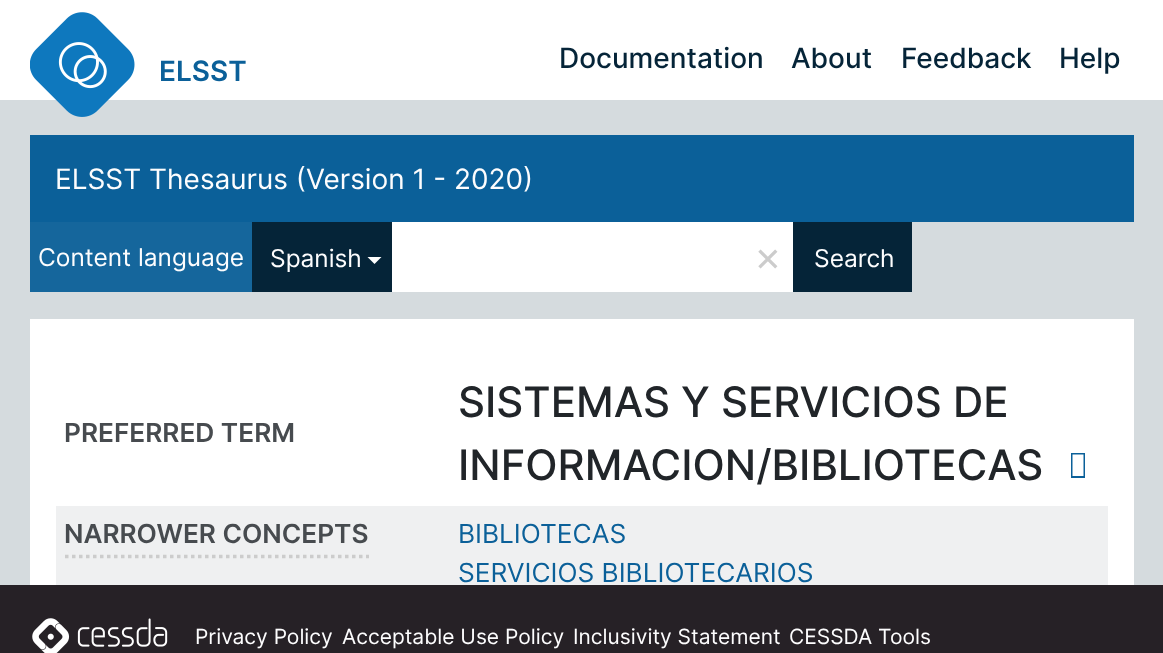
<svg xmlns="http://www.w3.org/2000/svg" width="1163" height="653">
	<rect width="100%" height="100%" fill="#D5DBDE" />
	<rect x="0" y="0" width="1163" height="100" fill="#FFFFFF" />
	<image x="30" y="12" width="105" height="105" href="assets/img1.png" />
	<text x="159" y="81" font-family="Inter" font-size="28" font-weight="600" fill="#0B6099">ELSST</text>
	<g font-family="Inter" font-size="28" font-weight="500" fill="#052438">
		<text x="559" y="68">Documentation</text>
		<text x="791" y="68">About</text>
		<text x="901" y="68">Feedback</text>
		<text x="1059" y="68">Help</text>
	</g>
	<rect x="30" y="135" width="1104" height="87" fill="#0B6099" />
	<text x="55" y="189" font-family="Inter" font-size="28" fill="#FDFDFE">ELSST Thesaurus (Version 1 - 2020)</text>
	<rect x="30" y="222" width="222" height="70" fill="#15669C" />
	<text x="38" y="266" font-family="Inter" font-size="24.5" fill="#FDFDFE">Content language</text>
	<rect x="252" y="222" width="140" height="70" fill="#052438" />
	<text x="270" y="267" font-family="Inter" font-size="24.5" fill="#FDFDFE">Spanish</text>
	<path d="M367.5 257H381.5L374.5 264Z" fill="#FFFFFF" />
	<rect x="392" y="222" width="401" height="70" fill="#FFFFFF" />
	<text x="754" y="271" font-family="Inter" font-size="42" fill="#CCCCCC">×</text>
	<rect x="793" y="222" width="119" height="70" fill="#052438" />
	<text x="814" y="267" font-family="Inter" font-size="24.5" fill="#FDFDFE">Search</text>
	<rect x="30" y="319" width="1104" height="266" fill="#FFFFFF" />
	<text x="64" y="442" font-family="Inter" font-size="26.25" font-weight="600" fill="#474B4F">PREFERRED TERM</text>
	<g font-family="Inter" font-size="42" font-weight="500" fill="#212529">
		<text x="458" y="417">SISTEMAS Y SERVICIOS DE</text>
		<text x="458" y="480">INFORMACION/BIBLIOTECAS</text>
	</g>
	<path d="M1071 478V453H1085V478ZM1072.5 476H1083.5V454.5H1072.5Z" fill="#0B6099" />
	<rect x="56" y="506" width="1052" height="79" fill="#EFF0F1" />
	<path d="M65 556.5H369" fill="none" stroke="#CCCCCC" stroke-width="3.5" stroke-dasharray="3.5 3.5" />
	<text x="64" y="543" font-family="Inter" font-size="26.25" font-weight="600" fill="#474B4F">NARROWER CONCEPTS</text>
	<g font-family="Inter" font-size="26.25" fill="#0B6099">
		<text x="458" y="543">BIBLIOTECAS</text>
		<text x="458" y="582">SERVICIOS BIBLIOTECARIOS</text>
	</g>
	<rect x="0" y="585" width="1163" height="68" fill="#262126" />
	<image x="32" y="618" width="136" height="35" href="assets/img2.png" />
	<g font-family="Inter" font-size="21" fill="#FDFDFE">
		<text x="195" y="644">Privacy Policy</text>
		<text x="342" y="644">Acceptable Use Policy</text>
		<text x="573" y="644">Inclusivity Statement</text>
		<text x="789" y="644">CESSDA Tools</text>
	</g>
</svg>
